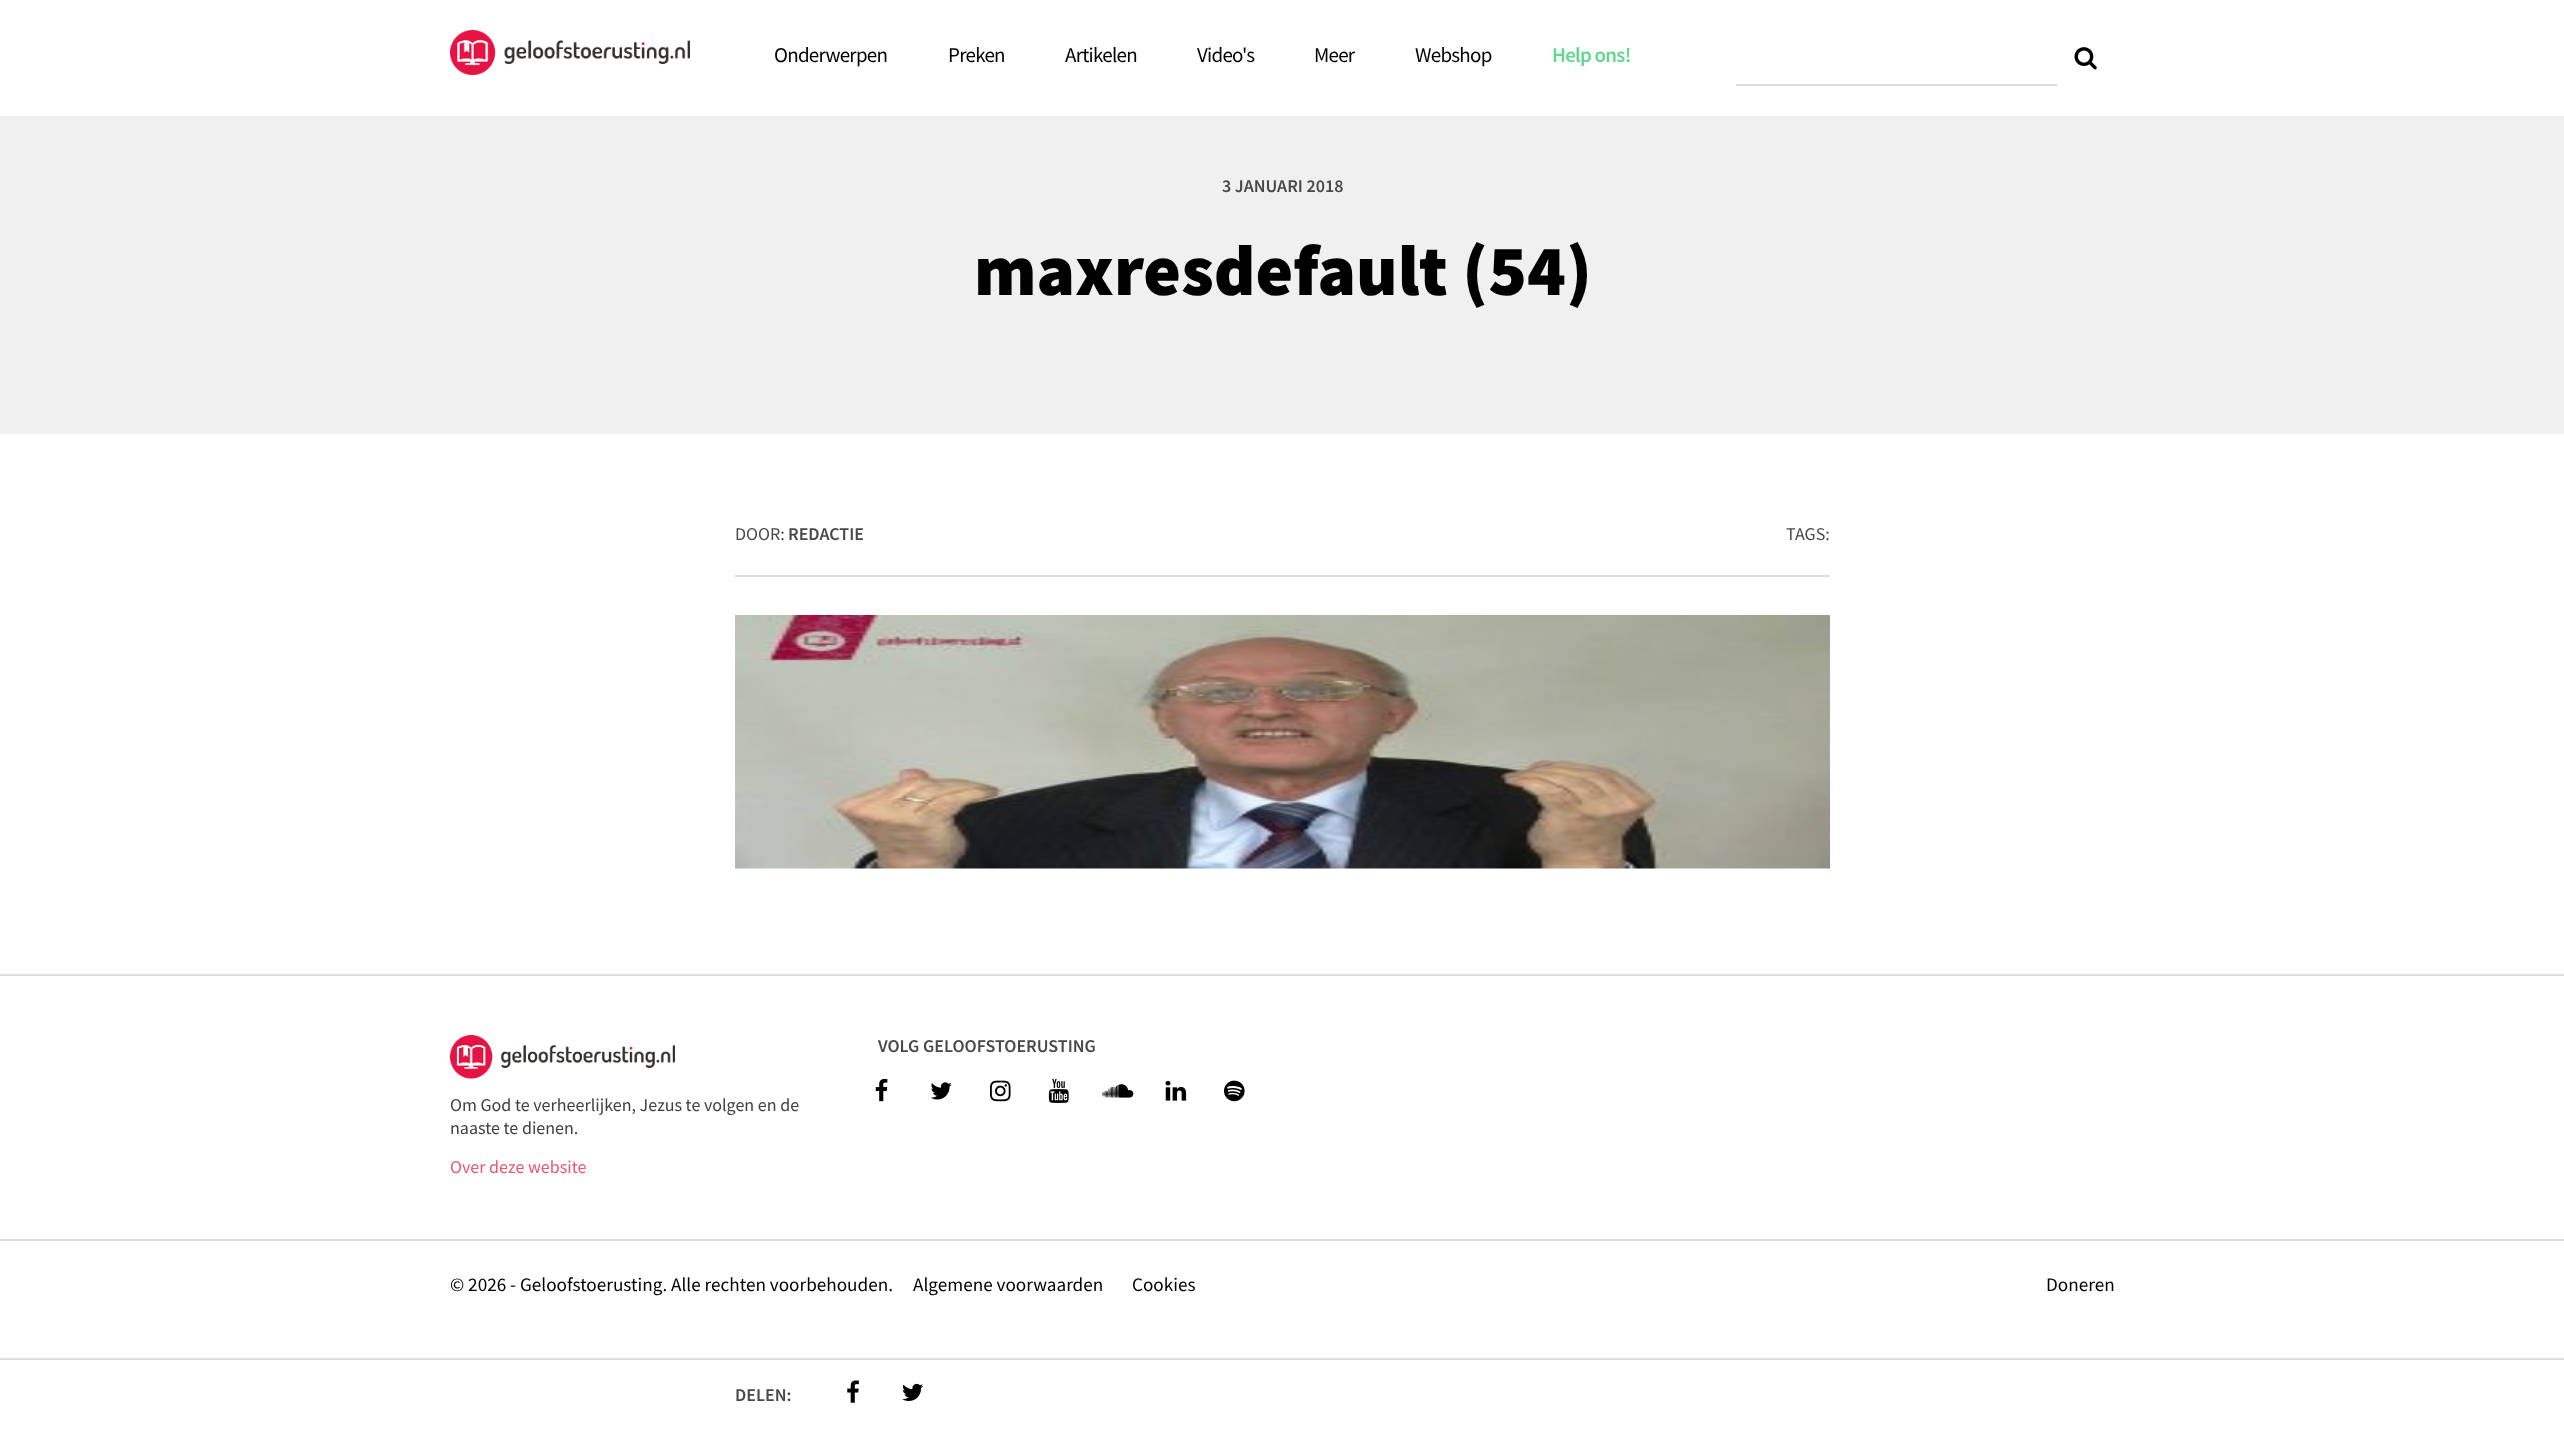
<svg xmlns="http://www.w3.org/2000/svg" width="2564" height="1433">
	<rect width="100%" height="100%" fill="#FFFFFF" />
	<image x="450" y="30" width="240" height="45" href="assets/img1.png" />
	<g font-family="Source Sans Pro" font-size="21" letter-spacing="-0.75" fill="#000000">
		<text x="774" y="62">Onderwerpen</text>
		<text x="948" y="62">Preken</text>
		<text x="1065" y="62">Artikelen</text>
		<text x="1197" y="62">Video's</text>
		<text x="1314" y="62">Meer</text>
		<text x="1415" y="62">Webshop</text>
	</g>
	<text x="1552" y="62" font-family="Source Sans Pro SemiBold" font-size="21" font-weight="600" letter-spacing="-0.75" fill="#62D88E">Help ons!</text>
	<image x="2074" y="47" width="23" height="23" href="assets/img2.png" />
	<rect x="1736" y="84" width="321" height="2" fill="#DDDDDD" />
	<rect x="0" y="116" width="2564" height="318" fill="#F0F0F0" />
	<text x="1222" y="192" font-family="Source Sans Pro SemiBold" font-size="18" font-weight="600" fill="#484848">3 JANUARI 2018</text>
	<text x="974" y="295" font-family="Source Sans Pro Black" font-size="72" font-weight="900" fill="#000000">maxresdefault (54)</text>
	<rect x="735" y="575" width="1095" height="2" fill="#DDDDDD" />
	<text x="735" y="540" font-family="Source Sans Pro" font-size="18" fill="#484848">DOOR:</text>
	<text x="788" y="540" font-family="Source Sans Pro SemiBold" font-size="18" font-weight="600" fill="#484848">REDACTIE</text>
	<text x="1786" y="540" font-family="Source Sans Pro" font-size="18" fill="#484848">TAGS:</text>
	<image x="735" y="615" width="1095" height="254" href="assets/img3.png" />
	<rect x="0" y="974" width="2564" height="2" fill="#DDDDDD" />
	<text x="878" y="1052" font-family="Source Sans Pro SemiBold" font-size="18" font-weight="600" fill="#484848">VOLG GELOOFSTOERUSTING</text>
	<image x="875" y="1078" width="13" height="24" href="assets/img4.png" />
	<image x="930" y="1082" width="22" height="18" href="assets/img5.png" />
	<image x="990" y="1080" width="21" height="22" href="assets/img6.png" />
	<image x="1048" y="1078" width="21" height="25" href="assets/img7.png" />
	<image x="1102" y="1084" width="32" height="14" href="assets/img8.png" />
	<image x="1165" y="1080" width="22" height="21" href="assets/img9.png" />
	<image x="1224" y="1080" width="21" height="22" href="assets/img10.png" />
	<image x="450" y="1035" width="225" height="44" href="assets/img11.png" />
	<g font-family="Source Sans Pro" font-size="18" fill="#404040">
		<text x="450" y="1111">Om God te verheerlijken, Jezus te volgen en de</text>
		<text x="450" y="1134">naaste te dienen.</text>
	</g>
	<text x="450" y="1173" font-family="Source Sans Pro" font-size="18" fill="#EC5671">Over deze website</text>
	<rect x="0" y="1239" width="2564" height="2" fill="#DDDDDD" />
	<g font-family="Source Sans Pro" font-size="19.2" fill="#000000">
		<text x="450" y="1291">© 2026 - Geloofstoerusting. Alle rechten voorbehouden.</text>
		<text x="913" y="1291">Algemene voorwaarden</text>
		<text x="1132" y="1291">Cookies</text>
		<text x="2046" y="1291">Doneren</text>
	</g>
	<rect x="0" y="1358" width="2564" height="2" fill="#DDDDDD" />
	<text x="735" y="1401" font-family="Source Sans Pro SemiBold" font-size="18" font-weight="600" fill="#484848">DELEN:</text>
	<image x="847" y="1380" width="12" height="23" href="assets/img12.png" />
	<image x="902" y="1383" width="21" height="18" href="assets/img13.png" />
</svg>
